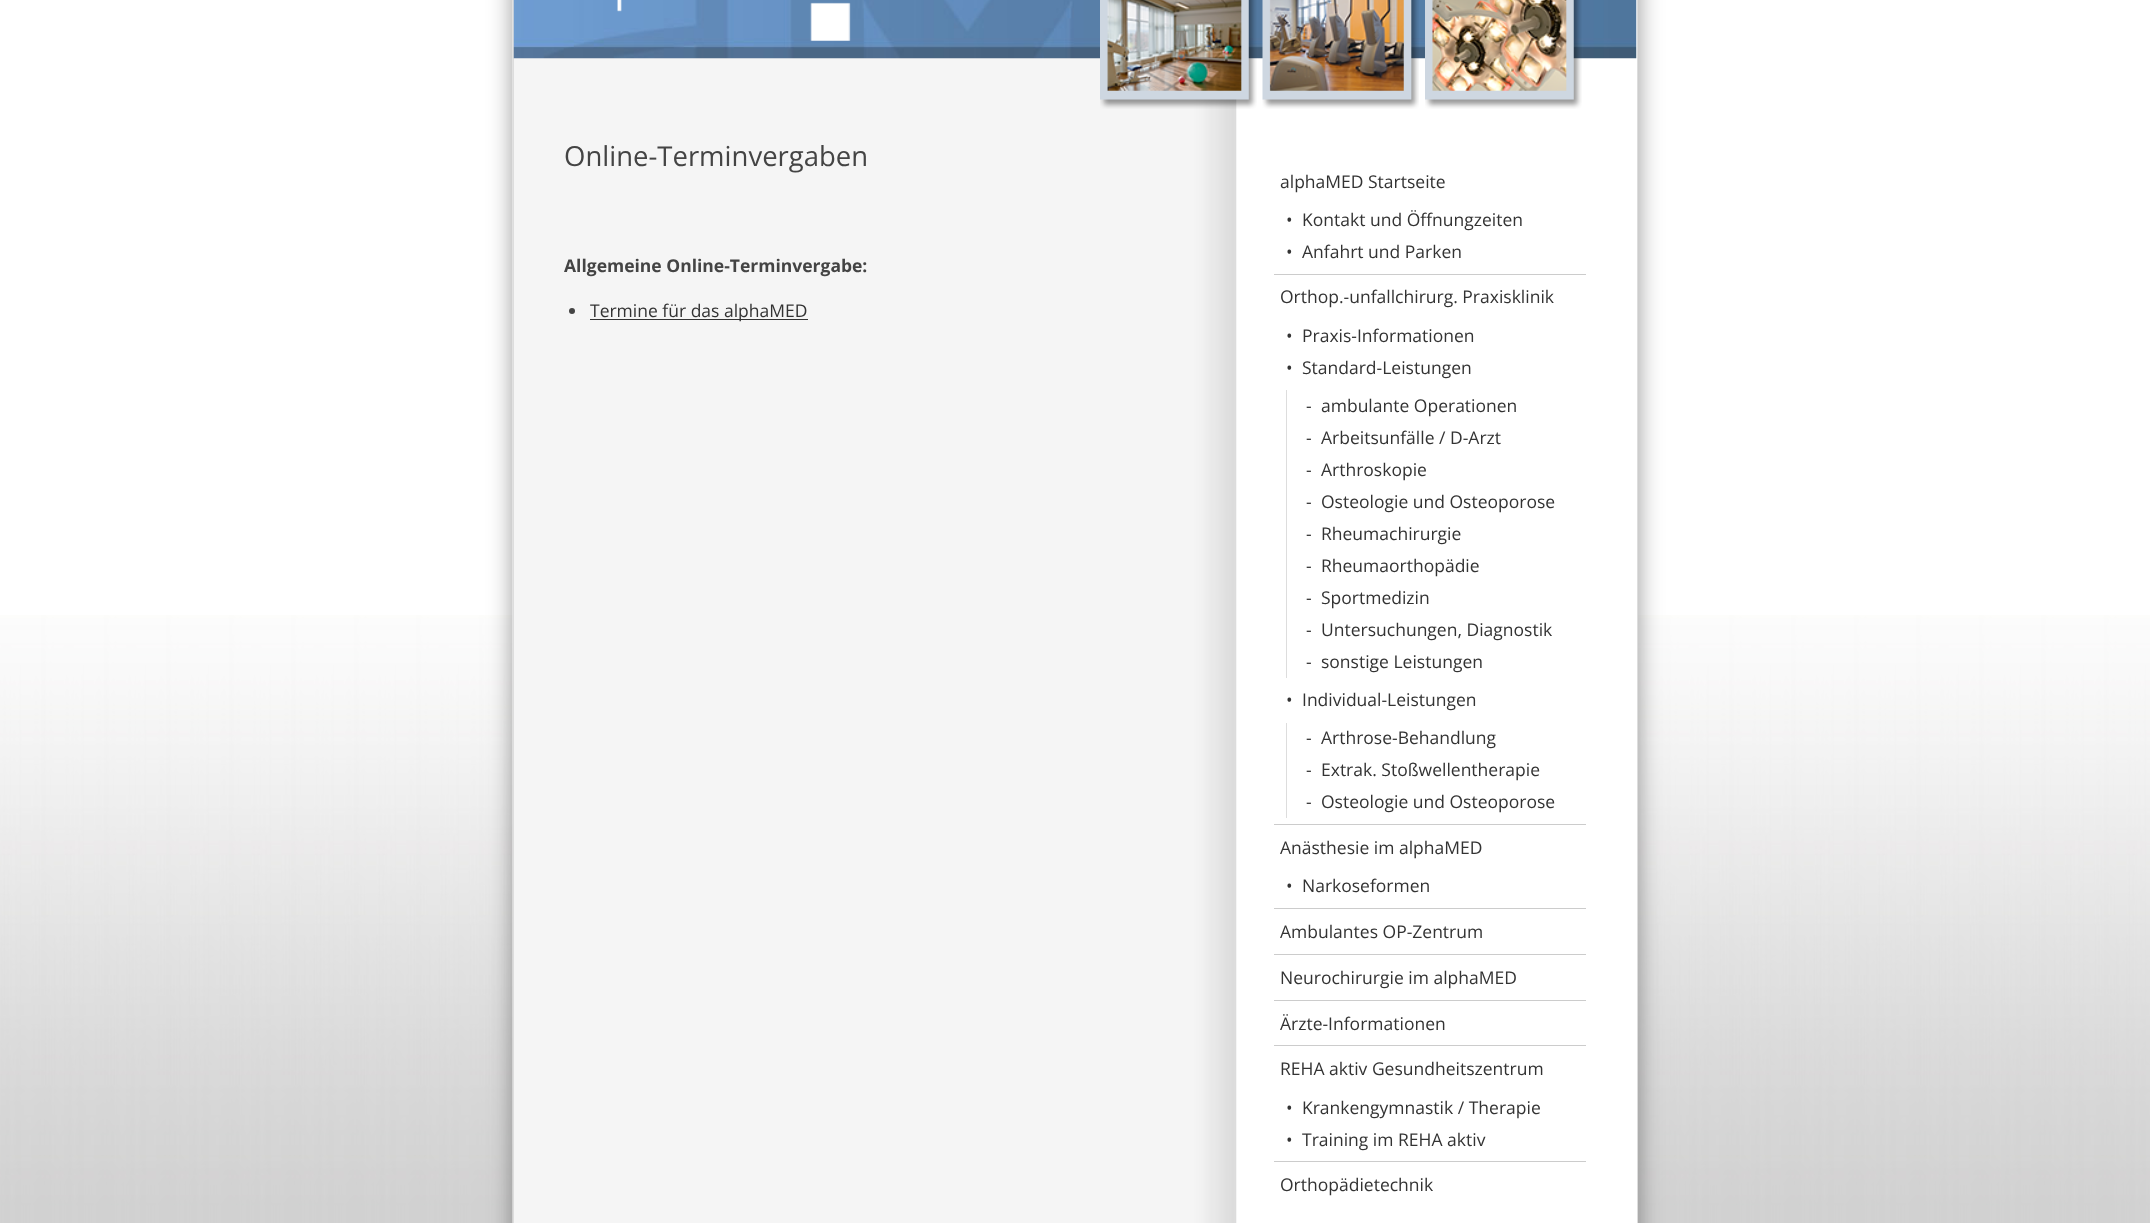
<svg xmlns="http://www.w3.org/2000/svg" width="2150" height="1223">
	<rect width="100%" height="100%" fill="#FFFFFF" />
	<image x="0" y="615" width="2150" height="608" href="assets/img1.png" />
	<rect x="513" y="-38" width="1125" height="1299" fill="#323232" fill-opacity="0.5" filter="blur(12.5px)" />
	<rect x="1237" y="0" width="400" height="1223" fill="#FFFFFF" />
	<image x="512" y="0" width="725" height="1223" href="assets/img2.png" />
	<rect x="513.5" y="-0.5" width="1124" height="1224" fill="none" stroke="#DDDDDD" />
	<image x="513" y="0" width="1124" height="59" href="assets/img3.png" />
	<image x="617" y="0" width="234" height="41" href="assets/img4.png" />
	<image x="1100" y="0" width="157" height="109" href="assets/img5.png" />
	<image x="1262" y="0" width="157" height="109" href="assets/img6.png" />
	<image x="1425" y="0" width="157" height="109" href="assets/img7.png" />
	<text x="564" y="166" font-family="Open Sans" font-size="27.5" fill="#444444">Online-Terminvergaben</text>
	<text x="564" y="272" font-family="Open Sans" font-size="17.5" font-weight="700" fill="#444444">Allgemeine Online-Terminvergabe:</text>
	<circle cx="572" cy="311" r="3" fill="#444444" />
	<rect x="590" y="319" width="218" height="1" fill="#333333" />
	<g font-family="Open Sans" font-size="17.5" fill="#333333">
		<text x="590" y="317">Termine für das alphaMED</text>
		<text x="1280" y="188">alphaMED Startseite</text>
		<text x="1286" y="226">•</text>
		<text x="1302" y="226">Kontakt und Öffnungzeiten</text>
		<text x="1286" y="258">•</text>
		<text x="1302" y="258">Anfahrt und Parken</text>
	</g>
	<rect x="1274" y="274" width="312" height="1" fill="#CCCCCC" />
	<g font-family="Open Sans" font-size="17.5" fill="#333333">
		<text x="1280" y="303">Orthop.-unfallchirurg. Praxisklinik</text>
		<text x="1286" y="342">•</text>
		<text x="1302" y="342">Praxis-Informationen</text>
		<text x="1286" y="374">•</text>
		<text x="1302" y="374">Standard-Leistungen</text>
	</g>
	<rect x="1286" y="390" width="1" height="288" fill="#DDDDDD" />
	<g font-family="Open Sans" font-size="17.5" fill="#333333">
		<text x="1306" y="412">-</text>
		<text x="1321" y="412">ambulante Operationen</text>
		<text x="1306" y="444">-</text>
		<text x="1321" y="444">Arbeitsunfälle / D-Arzt</text>
		<text x="1306" y="476">-</text>
		<text x="1321" y="476">Arthroskopie</text>
		<text x="1306" y="508">-</text>
		<text x="1321" y="508">Osteologie und Osteoporose</text>
		<text x="1306" y="540">-</text>
		<text x="1321" y="540">Rheumachirurgie</text>
		<text x="1306" y="572">-</text>
		<text x="1321" y="572">Rheumaorthopädie</text>
		<text x="1306" y="604">-</text>
		<text x="1321" y="604">Sportmedizin</text>
		<text x="1306" y="636">-</text>
		<text x="1321" y="636">Untersuchungen, Diagnostik</text>
		<text x="1306" y="668">-</text>
		<text x="1321" y="668">sonstige Leistungen</text>
		<text x="1286" y="706">•</text>
		<text x="1302" y="706">Individual-Leistungen</text>
	</g>
	<rect x="1286" y="723" width="1" height="95" fill="#DDDDDD" />
	<g font-family="Open Sans" font-size="17.5" fill="#333333">
		<text x="1306" y="744">-</text>
		<text x="1321" y="744">Arthrose-Behandlung</text>
		<text x="1306" y="776">-</text>
		<text x="1321" y="776">Extrak. Stoßwellentherapie</text>
		<text x="1306" y="808">-</text>
		<text x="1321" y="808">Osteologie und Osteoporose</text>
	</g>
	<rect x="1274" y="824" width="312" height="1" fill="#CCCCCC" />
	<g font-family="Open Sans" font-size="17.5" fill="#333333">
		<text x="1280" y="854">Anästhesie im alphaMED</text>
		<text x="1286" y="892">•</text>
		<text x="1302" y="892">Narkoseformen</text>
	</g>
	<rect x="1274" y="908" width="312" height="1" fill="#CCCCCC" />
	<text x="1280" y="938" font-family="Open Sans" font-size="17.5" fill="#333333">Ambulantes OP-Zentrum</text>
	<rect x="1274" y="954" width="312" height="1" fill="#CCCCCC" />
	<text x="1280" y="984" font-family="Open Sans" font-size="17.5" fill="#333333">Neurochirurgie im alphaMED</text>
	<rect x="1274" y="1000" width="312" height="1" fill="#CCCCCC" />
	<text x="1280" y="1030" font-family="Open Sans" font-size="17.5" fill="#333333">Ärzte-Informationen</text>
	<rect x="1274" y="1045" width="312" height="1" fill="#CCCCCC" />
	<g font-family="Open Sans" font-size="17.5" fill="#333333">
		<text x="1280" y="1075">REHA aktiv Gesundheitszentrum</text>
		<text x="1286" y="1114">•</text>
		<text x="1302" y="1114">Krankengymnastik / Therapie</text>
		<text x="1286" y="1146">•</text>
		<text x="1302" y="1146">Training im REHA aktiv</text>
	</g>
	<rect x="1274" y="1161" width="312" height="1" fill="#CCCCCC" />
	<text x="1280" y="1191" font-family="Open Sans" font-size="17.5" fill="#333333">Orthopädietechnik</text>
</svg>
